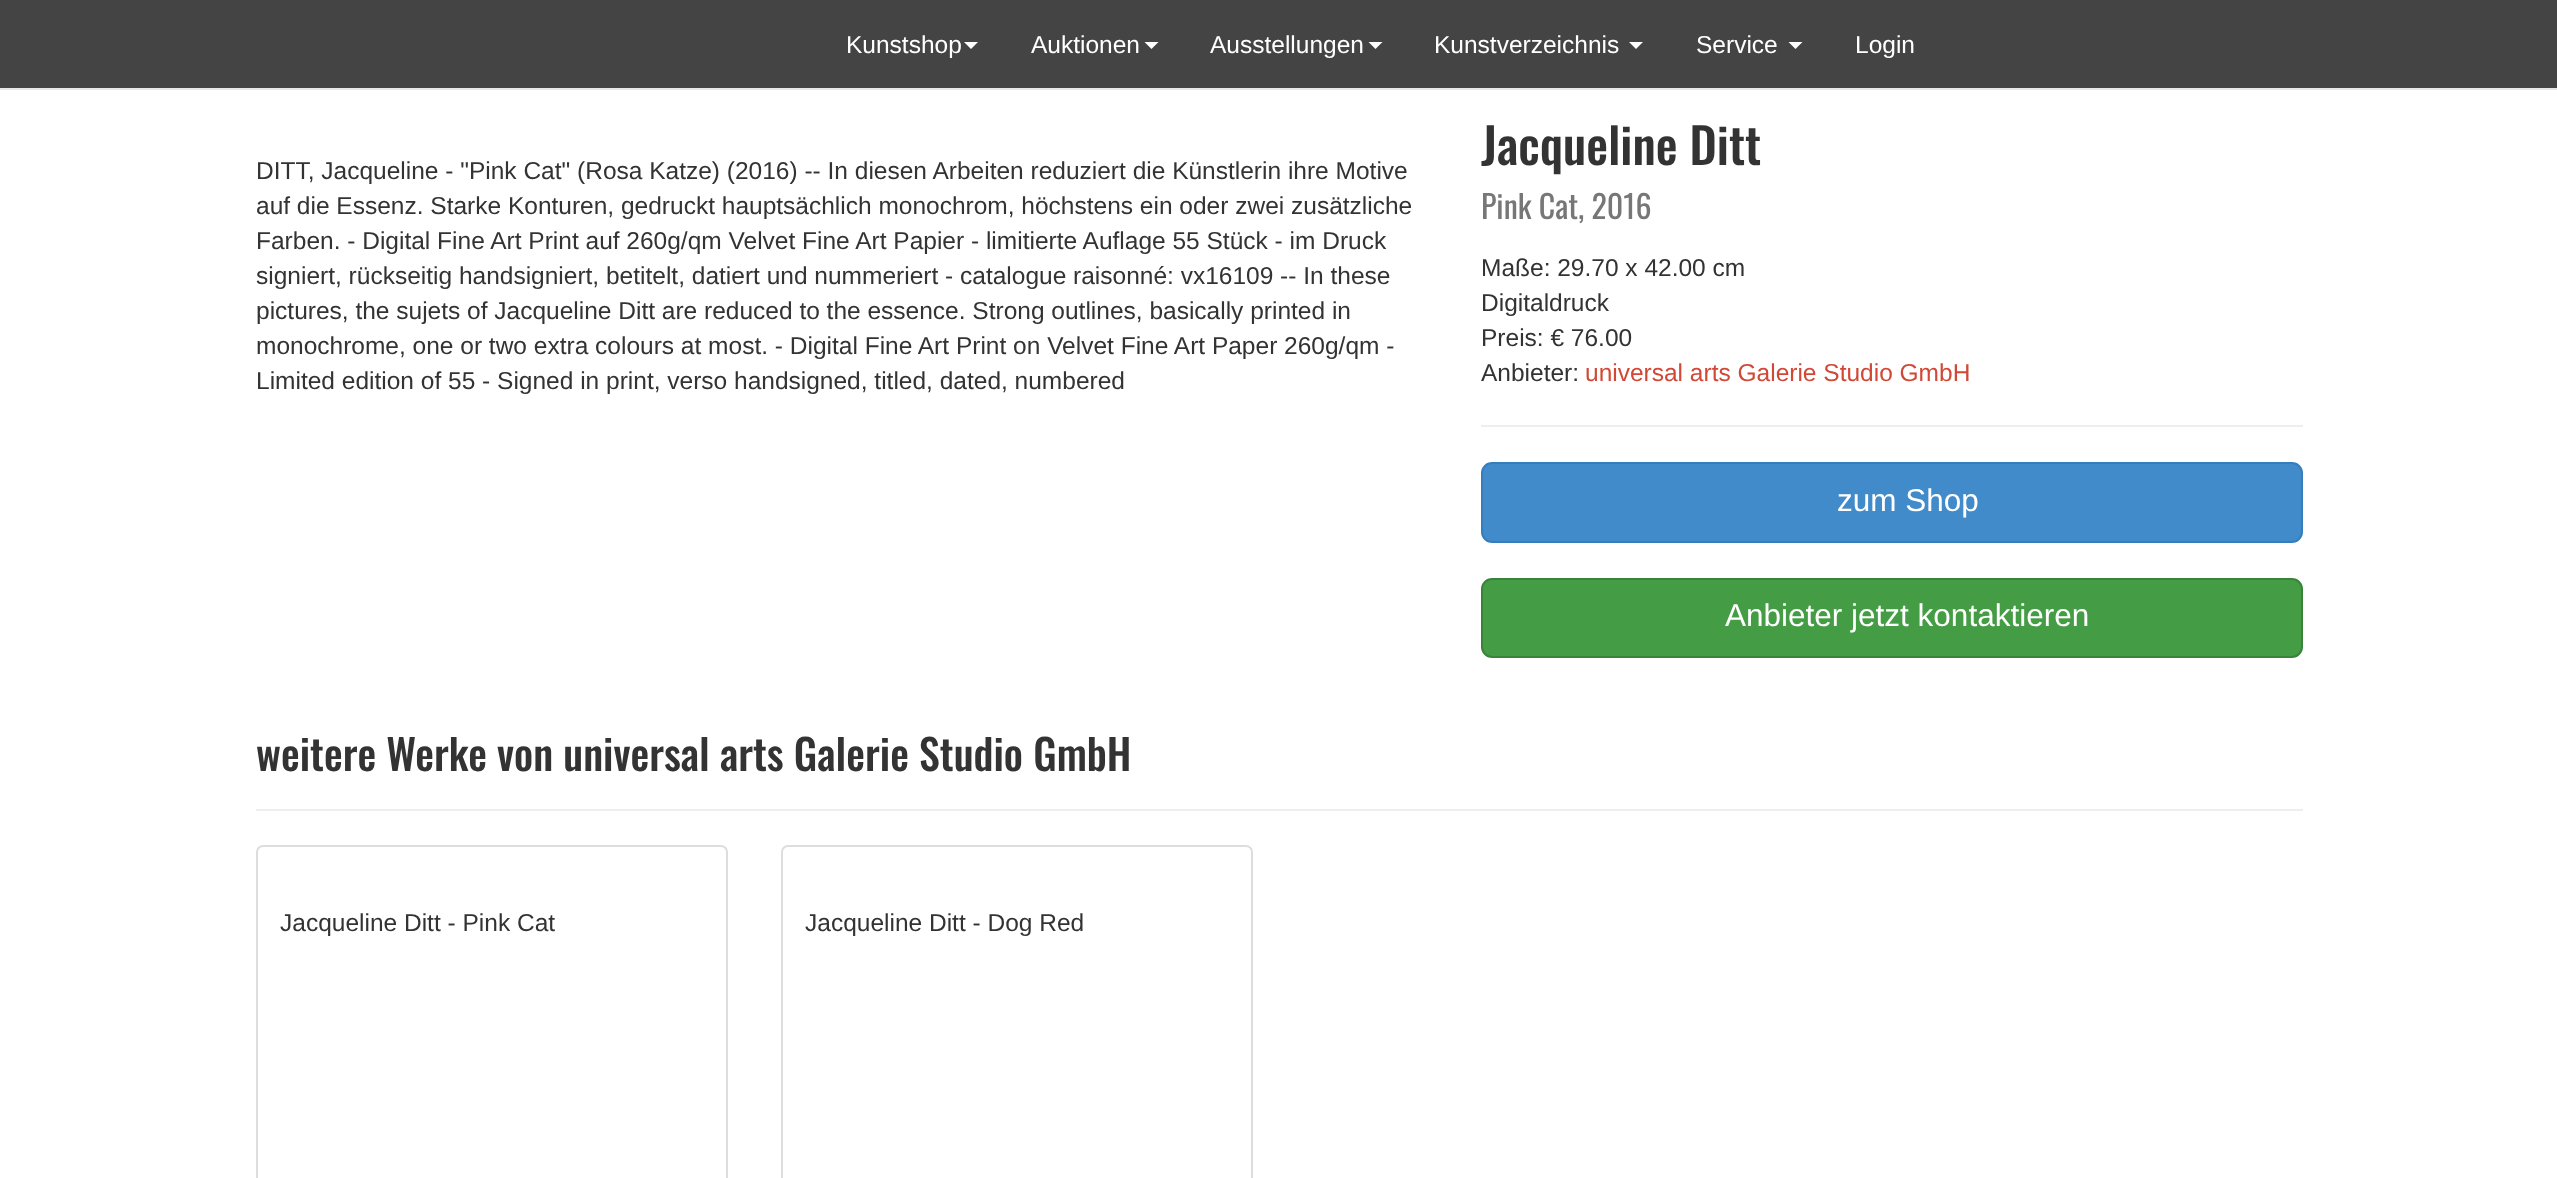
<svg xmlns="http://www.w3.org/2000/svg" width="2557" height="1178">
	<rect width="100%" height="100%" fill="#FFFFFF" />
	<rect x="0" y="0" width="2557" height="88" fill="#444444" />
	<rect x="0" y="88" width="2557" height="2" fill="#E7E7E7" />
	<text x="846" y="53" font-family="Liberation Sans" font-size="24.5" fill="#FFFFFF">Kunstshop</text>
	<path d="M964 42H978L971 49Z" fill="#FFFFFF" />
	<text x="1031" y="53" font-family="Liberation Sans" font-size="24.5" fill="#FFFFFF">Auktionen</text>
	<path d="M1144.5 42H1158.5L1151.5 49Z" fill="#FFFFFF" />
	<text x="1210" y="53" font-family="Liberation Sans" font-size="24.5" fill="#FFFFFF">Ausstellungen</text>
	<path d="M1368.5 42H1382.5L1375.5 49Z" fill="#FFFFFF" />
	<text x="1434" y="53" font-family="Liberation Sans" font-size="24.5" fill="#FFFFFF">Kunstverzeichnis</text>
	<path d="M1629 42H1643L1636 49Z" fill="#FFFFFF" />
	<text x="1696" y="53" font-family="Liberation Sans" font-size="24.5" fill="#FFFFFF">Service</text>
	<path d="M1788.5 42H1802.5L1795.5 49Z" fill="#FFFFFF" />
	<text x="1855" y="53" font-family="Liberation Sans" font-size="24.5" fill="#FFFFFF">Login</text>
	<g font-family="Liberation Sans" font-size="24.5" fill="#333333">
		<text x="256" y="179">DITT, Jacqueline - "Pink Cat" (Rosa Katze) (2016) -- In diesen Arbeiten reduziert die Künstlerin ihre Motive</text>
		<text x="256" y="214">auf die Essenz. Starke Konturen, gedruckt hauptsächlich monochrom, höchstens ein oder zwei zusätzliche</text>
		<text x="256" y="249">Farben. - Digital Fine Art Print auf 260g/qm Velvet Fine Art Papier - limitierte Auflage 55 Stück - im Druck</text>
		<text x="256" y="284">signiert, rückseitig handsigniert, betitelt, datiert und nummeriert - catalogue raisonné: vx16109 -- In these</text>
		<text x="256" y="319">pictures, the sujets of Jacqueline Ditt are reduced to the essence. Strong outlines, basically printed in</text>
		<text x="256" y="354">monochrome, one or two extra colours at most. - Digital Fine Art Print on Velvet Fine Art Paper 260g/qm -</text>
		<text x="256" y="389">Limited edition of 55 - Signed in print, verso handsigned, titled, dated, numbered</text>
	</g>
	<text x="1481" y="165" font-family="Oswald" font-size="49" font-weight="500" fill="#333333">Jacqueline Ditt</text>
	<text x="1481" y="219" font-family="Oswald" font-size="32" fill="#777777">Pink Cat, 2016</text>
	<g font-family="Liberation Sans" font-size="24.5" fill="#333333">
		<text x="1481" y="276">Maße: 29.70 x 42.00 cm</text>
		<text x="1481" y="311">Digitaldruck</text>
		<text x="1481" y="346">Preis: € 76.00</text>
		<text x="1481" y="381">Anbieter:</text>
	</g>
	<text x="1585" y="381" font-family="Liberation Sans" font-size="24.5" fill="#D14836">universal arts Galerie Studio GmbH</text>
	<rect x="1481" y="425" width="822" height="2" fill="#EEEEEE" />
	<rect x="1482" y="463" width="820" height="79" rx="10" fill="#428BCA" stroke="#357EBD" stroke-width="2" />
	<text x="1837" y="511" font-family="Liberation Sans" font-size="31.5" fill="#FFFFFF">zum Shop</text>
	<rect x="1482" y="579" width="820" height="78" rx="10" fill="#449D44" stroke="#398439" stroke-width="2" />
	<text x="1725" y="626" font-family="Liberation Sans" font-size="31.5" fill="#FFFFFF">Anbieter jetzt kontaktieren</text>
	<rect x="256" y="809" width="2047" height="2" fill="#EEEEEE" />
	<text x="256" y="771" font-family="Oswald" font-size="42" font-weight="500" fill="#333333">weitere Werke von universal arts Galerie Studio GmbH</text>
	<rect x="257" y="846" width="470" height="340" rx="6" fill="none" stroke="#DDDDDD" stroke-width="2" />
	<text x="280" y="931" font-family="Liberation Sans" font-size="24.5" fill="#333333">Jacqueline Ditt - Pink Cat</text>
	<rect x="782" y="846" width="470" height="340" rx="6" fill="none" stroke="#DDDDDD" stroke-width="2" />
	<text x="805" y="931" font-family="Liberation Sans" font-size="24.5" fill="#333333">Jacqueline Ditt - Dog Red</text>
</svg>
